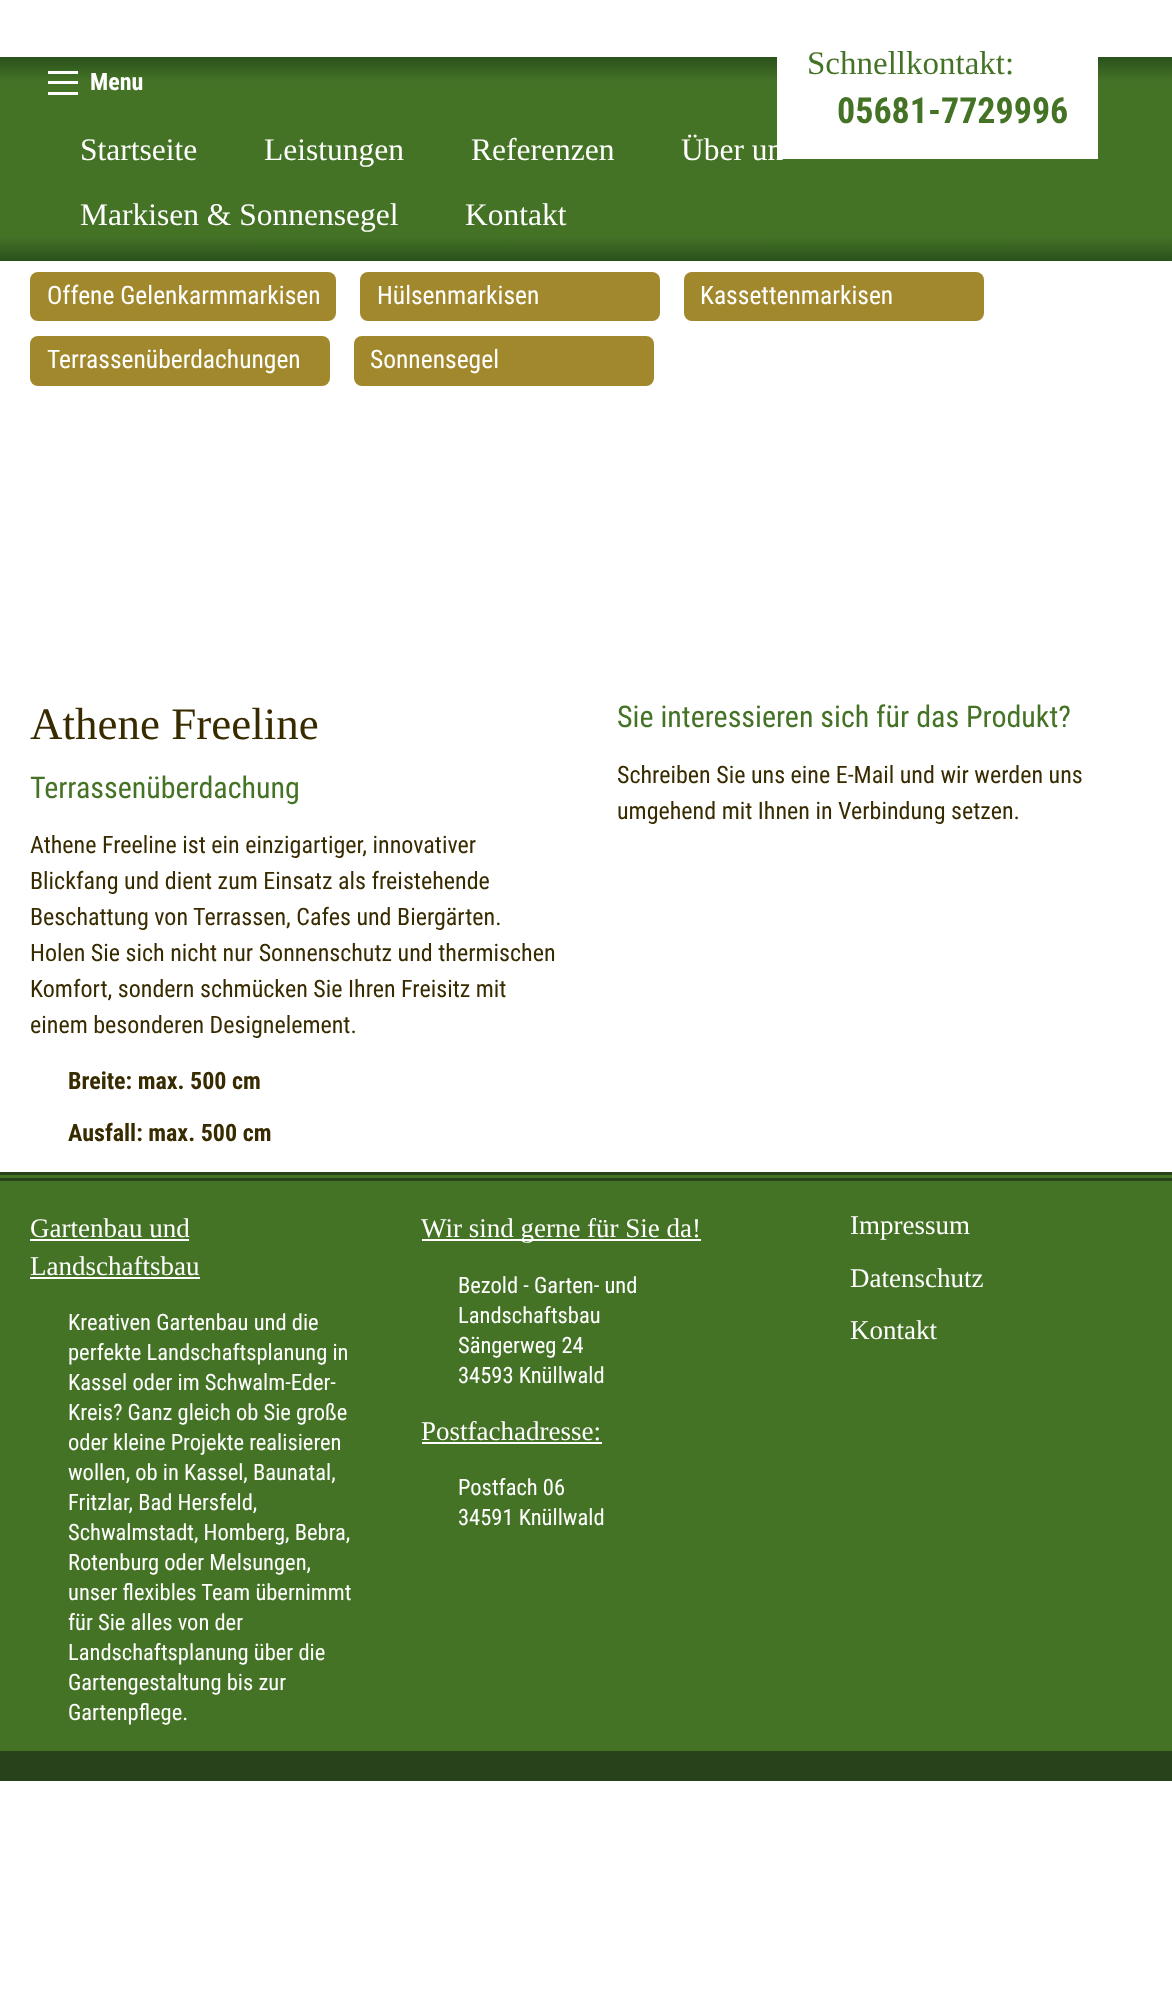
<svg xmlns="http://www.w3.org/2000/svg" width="1172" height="2000">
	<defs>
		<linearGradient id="g1" gradientUnits="userSpaceOnUse" x1="587" y1="57" x2="587" y2="261"><stop offset="0" stop-color="#29511B" /><stop offset="0.12" stop-color="#457326" /><stop offset="0.88" stop-color="#457326" /><stop offset="1" stop-color="#29511B" /></linearGradient>
	</defs>
	<rect width="100%" height="100%" fill="#FFFFFF" />
	<rect x="0" y="57" width="1172" height="204" fill="url(#g1)" />
	<rect x="48" y="92" width="30" height="3" fill="#FEFEFE" />
	<rect x="48" y="81" width="30" height="3" fill="#FEFEFE" />
	<rect x="48" y="71" width="30" height="3" fill="#FEFEFE" />
	<text x="90" y="90" font-family="Roboto Condensed" font-size="24" font-weight="700" fill="#FFFFFF">Menu</text>
	<g font-family="Liberation Serif" font-size="31.5" fill="#FFFFFF">
		<text x="80" y="160">Startseite</text>
		<text x="264" y="160">Leistungen</text>
		<text x="471" y="160">Referenzen</text>
		<text x="681" y="160">Über un</text>
		<text x="80" y="225">Markisen &amp; Sonnensegel</text>
		<text x="465" y="225">Kontakt</text>
	</g>
	<rect x="777" y="57" width="321" height="102" fill="#FFFFFF" />
	<text x="807" y="74" font-family="Liberation Serif" font-size="33" fill="#457326">Schnellkontakt:</text>
	<text x="837" y="123" font-family="Roboto Condensed" font-size="36" font-weight="700" fill="#457326">05681-7729996</text>
	<rect x="30" y="272" width="306" height="49" rx="8" fill="#A1882C" />
	<text x="47" y="304" font-family="Roboto Condensed" font-size="25.5" fill="#FFFFFF">Offene Gelenkarmmarkisen</text>
	<rect x="360" y="272" width="300" height="49" rx="8" fill="#A1882C" />
	<text x="377" y="304" font-family="Roboto Condensed" font-size="25.5" fill="#FFFFFF">Hülsenmarkisen</text>
	<rect x="684" y="272" width="300" height="49" rx="8" fill="#A1882C" />
	<text x="700" y="304" font-family="Roboto Condensed" font-size="25.5" fill="#FFFFFF">Kassettenmarkisen</text>
	<rect x="30" y="336" width="300" height="50" rx="8" fill="#A1882C" />
	<text x="47" y="368" font-family="Roboto Condensed" font-size="25.5" fill="#FFFFFF">Terrassenüberdachungen</text>
	<rect x="354" y="336" width="300" height="50" rx="8" fill="#A1882C" />
	<text x="370" y="368" font-family="Roboto Condensed" font-size="25.5" fill="#FFFFFF">Sonnensegel</text>
	<text x="30" y="739" font-family="Liberation Serif" font-size="45" fill="#382B00">Athene Freeline</text>
	<text x="30" y="798" font-family="Roboto Condensed" font-size="30" fill="#457326">Terrassenüberdachung</text>
	<g font-family="Roboto Condensed" font-size="24" fill="#382B00">
		<text x="30" y="853">Athene Freeline ist ein einzigartiger, innovativer</text>
		<text x="30" y="889">Blickfang und dient zum Einsatz als freistehende</text>
		<text x="30" y="925">Beschattung von Terrassen, Cafes und Biergärten.</text>
		<text x="30" y="961">Holen Sie sich nicht nur Sonnenschutz und thermischen</text>
		<text x="30" y="997">Komfort, sondern schmücken Sie Ihren Freisitz mit</text>
		<text x="30" y="1033">einem besonderen Designelement.</text>
	</g>
	<g font-family="Roboto Condensed" font-size="24" font-weight="700" fill="#382B00">
		<text x="68" y="1089">Breite: max. 500 cm</text>
		<text x="68" y="1141">Ausfall: max. 500 cm</text>
	</g>
	<text x="617" y="727" font-family="Roboto Condensed" font-size="30" fill="#457326">Sie interessieren sich für das Produkt?</text>
	<g font-family="Roboto Condensed" font-size="24" fill="#382B00">
		<text x="617" y="783">Schreiben Sie uns eine E-Mail und wir werden uns</text>
		<text x="617" y="819">umgehend mit Ihnen in Verbindung setzen.</text>
	</g>
	<rect x="0" y="1175" width="1172" height="576" fill="#457326" />
	<rect x="0" y="1172" width="1172" height="3" fill="#28431B" />
	<rect x="0" y="1178" width="1172" height="3" fill="#28431B" />
	<rect x="0" y="1751" width="1172" height="30" fill="#28431B" />
	<text x="30" y="1237" font-family="Liberation Serif" font-size="27" fill="#FFFFFF">Gartenbau und</text>
	<rect x="30" y="1239" width="159" height="2" fill="#FFFFFF" />
	<text x="30" y="1275" font-family="Liberation Serif" font-size="27" fill="#FFFFFF">Landschaftsbau</text>
	<rect x="30" y="1277" width="170" height="2" fill="#FFFFFF" />
	<g font-family="Roboto Condensed" font-size="22.5" fill="#FFFFFF">
		<text x="68" y="1330">Kreativen Gartenbau und die</text>
		<text x="68" y="1360">perfekte Landschaftsplanung in</text>
		<text x="68" y="1390">Kassel oder im Schwalm-Eder-</text>
		<text x="68" y="1420">Kreis? Ganz gleich ob Sie große</text>
		<text x="68" y="1450">oder kleine Projekte realisieren</text>
		<text x="68" y="1480">wollen, ob in Kassel, Baunatal,</text>
		<text x="68" y="1510">Fritzlar, Bad Hersfeld,</text>
		<text x="68" y="1540">Schwalmstadt, Homberg, Bebra,</text>
		<text x="68" y="1570">Rotenburg oder Melsungen,</text>
		<text x="68" y="1600">unser flexibles Team übernimmt</text>
		<text x="68" y="1630">für Sie alles von der</text>
		<text x="68" y="1660">Landschaftsplanung über die</text>
		<text x="68" y="1690">Gartengestaltung bis zur</text>
		<text x="68" y="1720">Gartenpflege.</text>
	</g>
	<rect x="422" y="1239" width="279" height="2" fill="#FFFFFF" />
	<text x="421" y="1237" font-family="Liberation Serif" font-size="27" fill="#FFFFFF">Wir sind gerne für Sie da!</text>
	<g font-family="Roboto Condensed" font-size="22.5" fill="#FFFFFF">
		<text x="458" y="1293">Bezold - Garten- und</text>
		<text x="458" y="1323">Landschaftsbau</text>
		<text x="458" y="1353">Sängerweg 24</text>
		<text x="458" y="1383">34593 Knüllwald</text>
	</g>
	<text x="421" y="1440" font-family="Liberation Serif" font-size="27" fill="#FFFFFF">Postfachadresse:</text>
	<rect x="422" y="1442" width="180" height="2" fill="#FFFFFF" />
	<g font-family="Roboto Condensed" font-size="22.5" fill="#FFFFFF">
		<text x="458" y="1495">Postfach 06</text>
		<text x="458" y="1525">34591 Knüllwald</text>
	</g>
	<g font-family="Liberation Serif" font-size="27" fill="#FFFFFF">
		<text x="850" y="1234">Impressum</text>
		<text x="850" y="1287">Datenschutz</text>
		<text x="850" y="1339">Kontakt</text>
	</g>
</svg>
